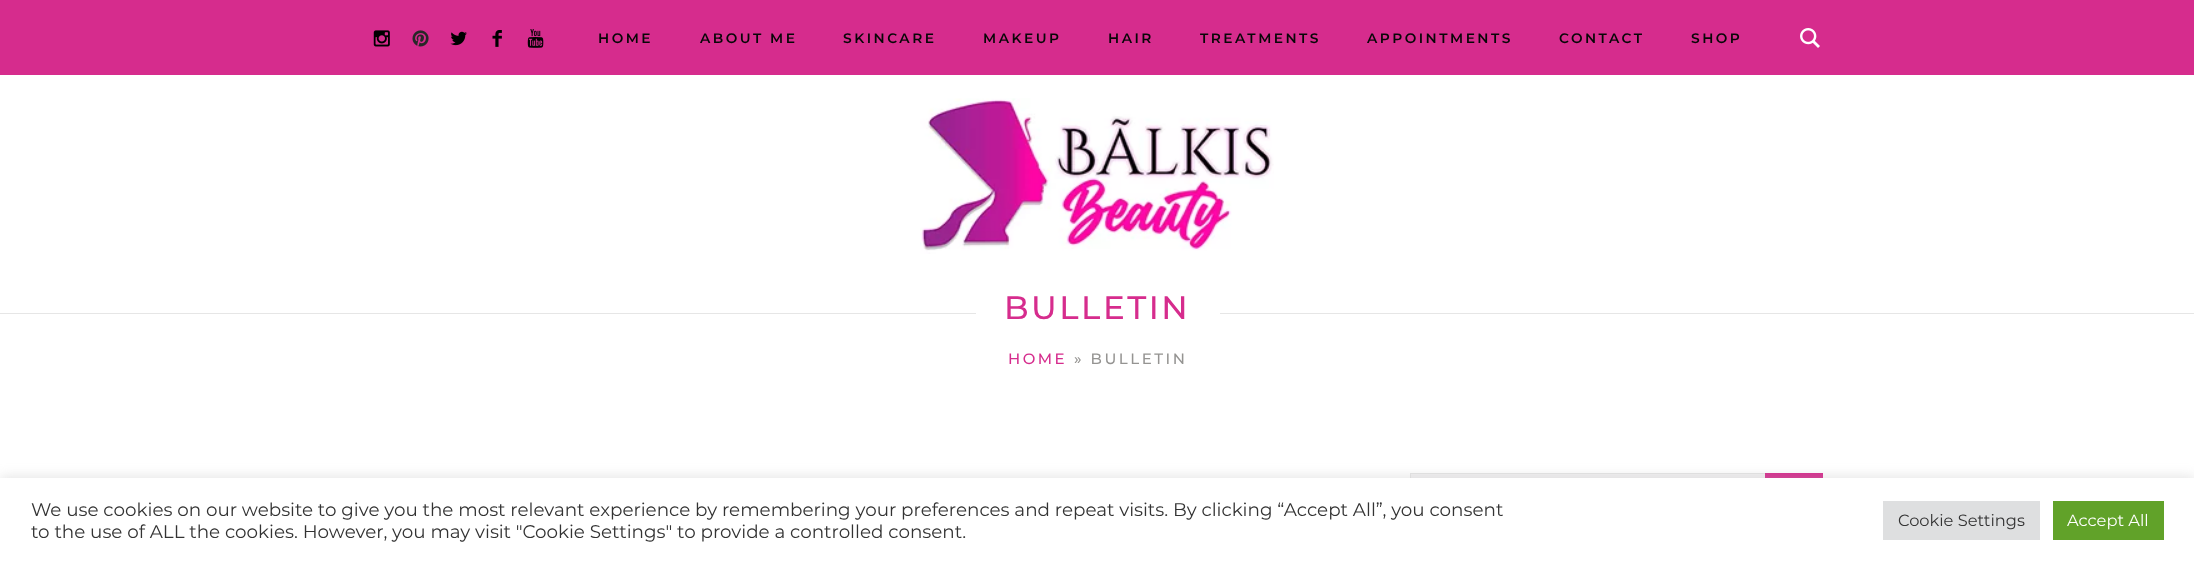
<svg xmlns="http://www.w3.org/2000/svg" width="2194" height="563">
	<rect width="100%" height="100%" fill="#FFFFFF" />
	<rect x="0" y="0" width="2194" height="75" fill="#D62C8D" />
	<image x="373" y="30" width="17" height="17" href="assets/img1.png" />
	<image x="412" y="30" width="17" height="17" href="assets/img2.png" />
	<image x="450" y="31" width="17" height="15" href="assets/img3.png" />
	<image x="492" y="30" width="10" height="17" href="assets/img4.png" />
	<image x="527" y="29" width="17" height="19" href="assets/img5.png" />
	<g font-family="Montserrat" font-size="13.75" font-weight="600" letter-spacing="2.5" fill="#070707">
		<text x="598" y="43">HOME</text>
		<text x="700" y="43">ABOUT ME</text>
		<text x="843" y="43">SKINCARE</text>
		<text x="983" y="43">MAKEUP</text>
		<text x="1108" y="43">HAIR</text>
		<text x="1200" y="43">TREATMENTS</text>
		<text x="1367" y="43">APPOINTMENTS</text>
		<text x="1559" y="43">CONTACT</text>
		<text x="1691" y="43">SHOP</text>
	</g>
	<image x="1800" y="28" width="20" height="20" href="assets/img6.png" />
	<image x="920" y="98" width="354" height="156" href="assets/img7.png" />
	<rect x="0" y="313" width="2194" height="1" fill="#E6E6E6" />
	<rect x="976" y="313" width="244" height="1" fill="#FFFFFF" />
	<text x="1004" y="319" font-family="Montserrat" font-size="32.5" font-weight="500" letter-spacing="2.5" fill="#D62C8D">BULLETIN</text>
	<text x="1008" y="364" font-family="Montserrat" font-size="15" font-weight="500" letter-spacing="2.5" fill="#D62C8D">HOME</text>
	<text x="1074" y="364" font-family="Montserrat" font-size="15" font-weight="500" letter-spacing="2.5" fill="#959492">» BULLETIN</text>
	<rect x="1411" y="474" width="354" height="4" fill="#F3F2F3" />
	<rect x="1410.5" y="473.5" width="412" height="56" fill="none" stroke="#E6E6E6" />
	<rect x="1765" y="473" width="58" height="5" fill="#D62C8D" />
	<rect x="0" y="476" width="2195" height="87" fill="#ACABAB" fill-opacity="0.3" filter="blur(6px)" />
	<rect x="0" y="478" width="2194" height="85" fill="#FFFFFF" />
	<g font-family="Montserrat" font-size="18.33" fill="#333333">
		<text x="31" y="516">We use cookies on our website to give you the most relevant experience by remembering your preferences and repeat visits. By clicking “Accept All”, you consent</text>
		<text x="31" y="538">to the use of ALL the cookies. However, you may visit "Cookie Settings" to provide a controlled consent.</text>
	</g>
	<rect x="1883" y="501" width="157" height="39" fill="#DEDFE0" />
	<text x="1898" y="526" font-family="Montserrat" font-size="16.25" fill="#333333">Cookie Settings</text>
	<rect x="2053" y="501" width="111" height="39" fill="#61A229" />
	<text x="2067" y="526" font-family="Montserrat" font-size="16.25" fill="#FFFFFF">Accept All</text>
</svg>
